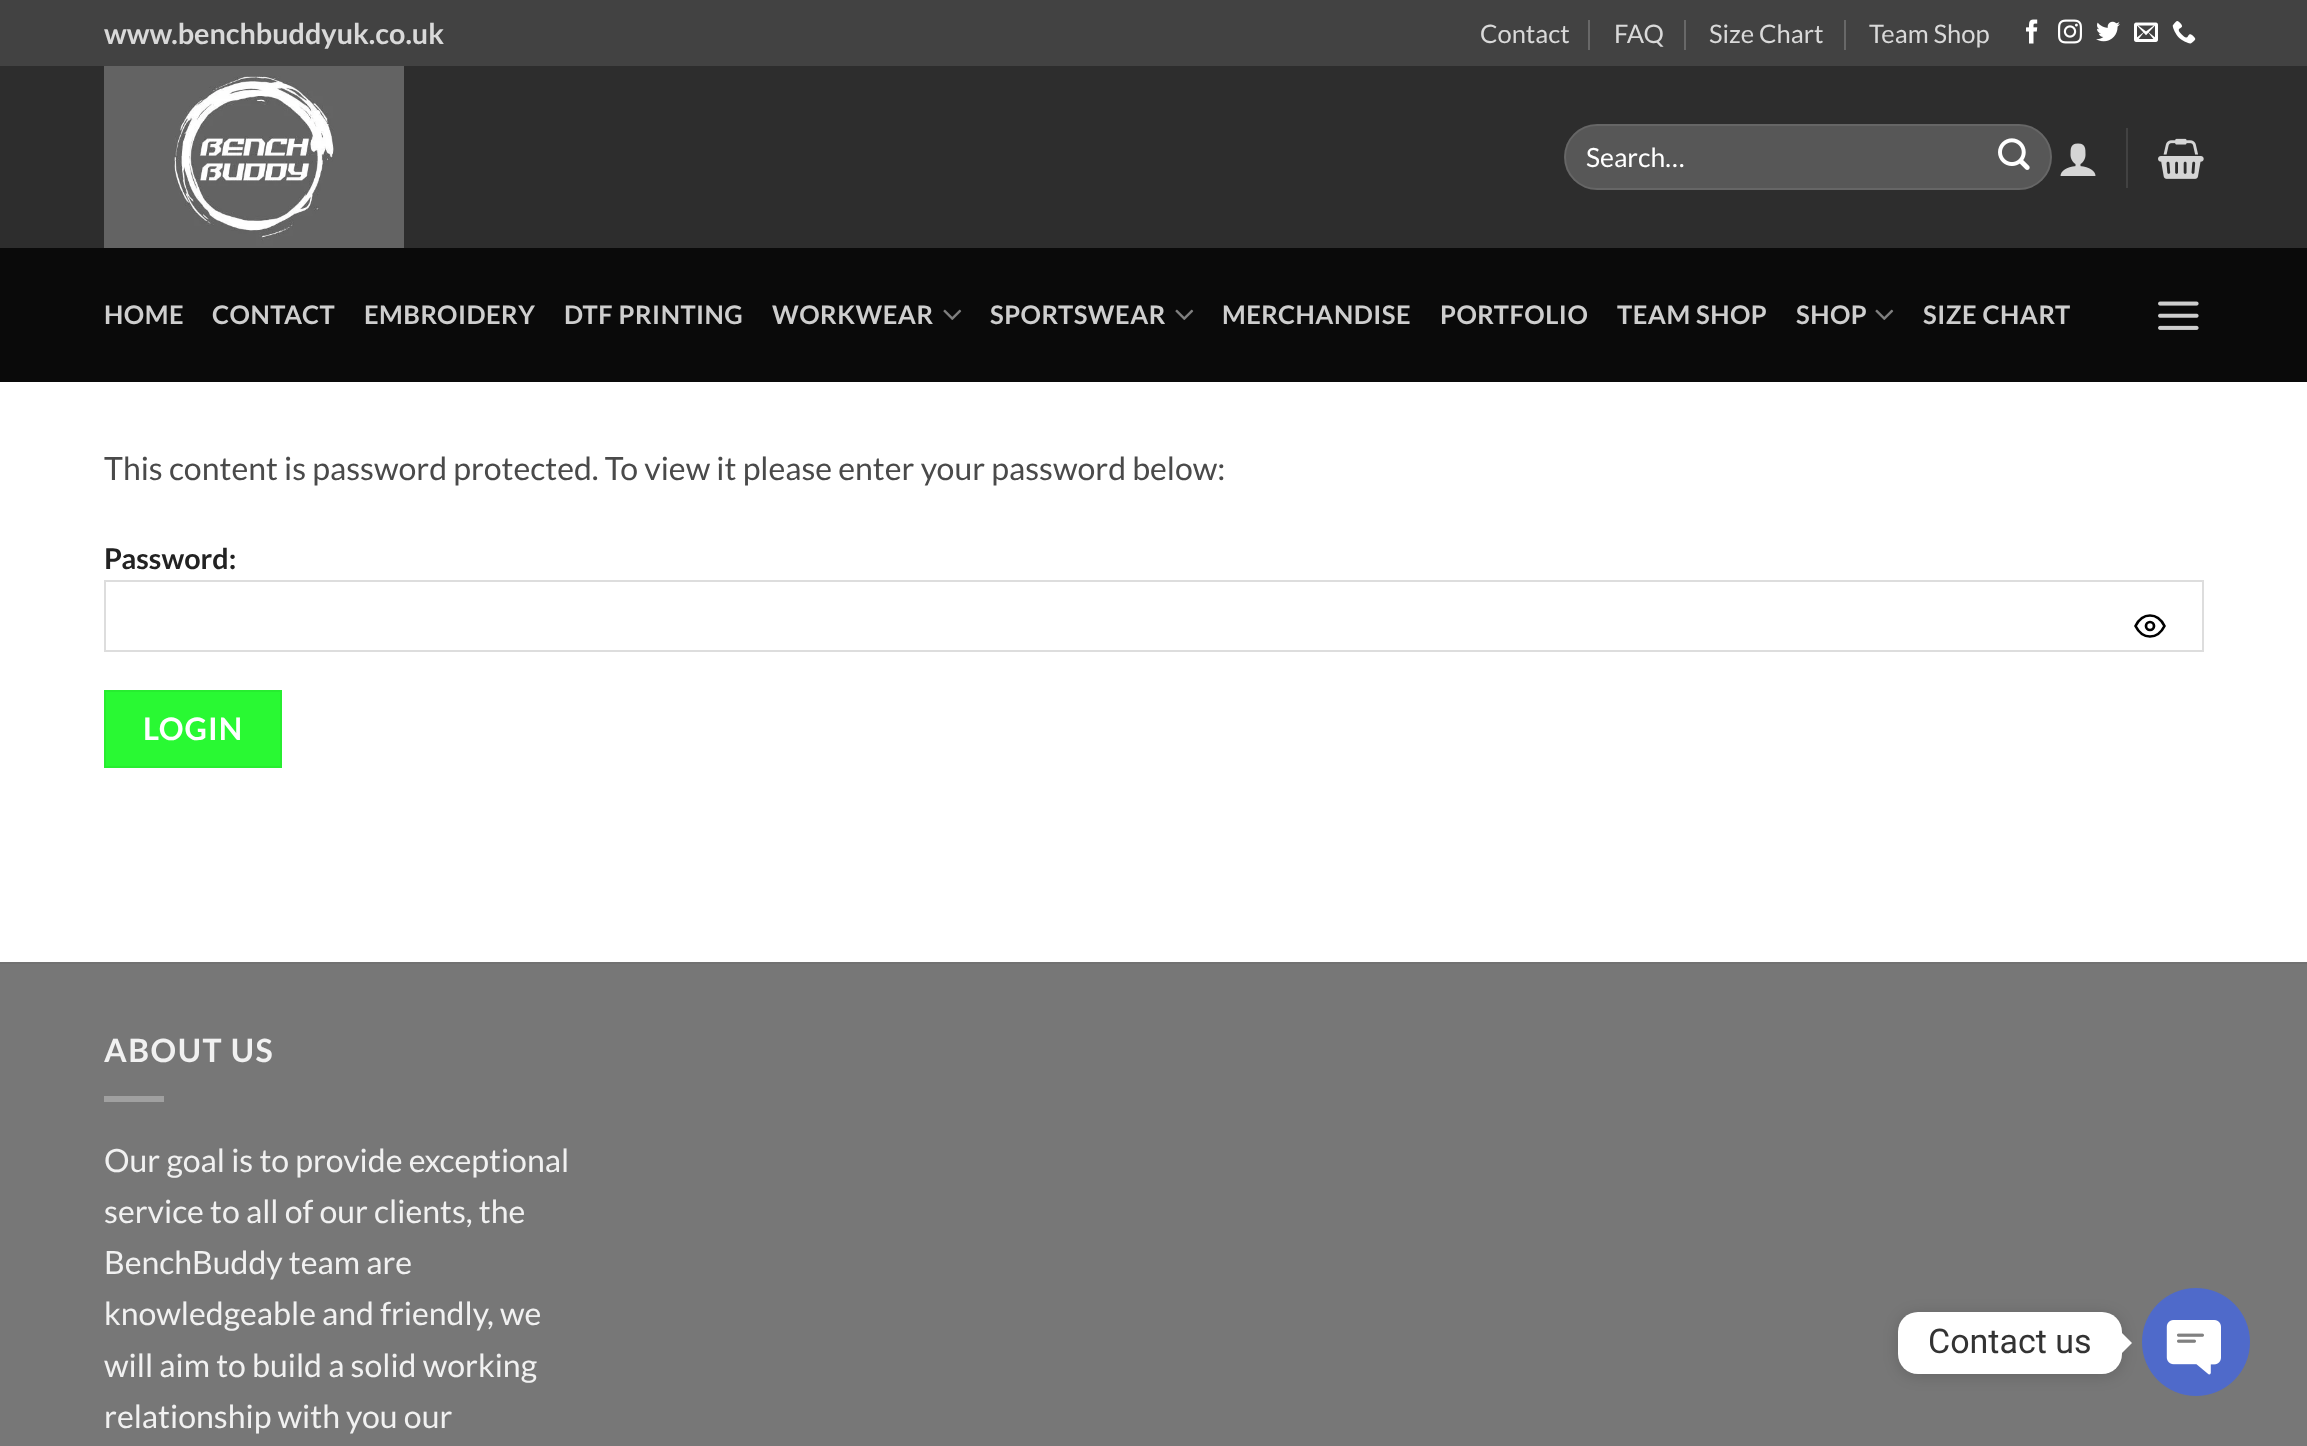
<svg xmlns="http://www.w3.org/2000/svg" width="2307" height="1446">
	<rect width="100%" height="100%" fill="#FFFFFF" />
	<rect x="0" y="0" width="2307" height="66" fill="#424242" />
	<text x="104" y="44" font-family="Lato" font-size="28.75" font-weight="700" fill="#D9D9D9">www.benchbuddyuk.co.uk</text>
	<text x="1480" y="43" font-family="Lato" font-size="25.5" fill="#D9D9D9">Contact</text>
	<rect x="1588" y="20" width="2" height="30" fill="#686868" />
	<text x="1614" y="43" font-family="Lato" font-size="25.5" fill="#D9D9D9">FAQ</text>
	<rect x="1684" y="20" width="2" height="30" fill="#686868" />
	<text x="1709" y="43" font-family="Lato" font-size="25.5" fill="#D9D9D9">Size Chart</text>
	<rect x="1844" y="20" width="2" height="30" fill="#686868" />
	<text x="1869" y="43" font-family="Lato" font-size="25.5" fill="#D9D9D9">Team Shop</text>
	<image x="2026" y="19" width="12" height="25" href="assets/img1.png" />
	<image x="2058" y="19" width="24" height="25" href="assets/img2.png" />
	<image x="2096" y="21" width="24" height="21" href="assets/img3.png" />
	<image x="2134" y="22" width="24" height="20" href="assets/img4.png" />
	<image x="2172" y="21" width="24" height="23" href="assets/img5.png" />
	<rect x="0" y="66" width="2307" height="182" fill="#2D2D2D" />
	<image x="104" y="66" width="300" height="182" href="assets/img6.png" />
	<rect x="1564" y="124" width="488" height="66" rx="33" fill="#575757" />
	<rect x="1565" y="125" width="486" height="64" rx="32" fill="none" stroke="#FFFFFF" stroke-opacity="0.09" stroke-width="2" />
	<text x="1586" y="167" font-family="Lato" font-size="26.5" fill="#FFFFFF">Search…</text>
	<image x="1998" y="138" width="32" height="32" href="assets/img7.png" />
	<image x="2060" y="143" width="36" height="33" href="assets/img8.png" />
	<rect x="2126" y="128" width="2" height="60" fill="#424242" />
	<image x="2158" y="138" width="46" height="41" href="assets/img9.png" />
	<rect x="0" y="248" width="2307" height="134" fill="#0A0A0A" />
	<g font-family="Lato" font-size="25.5" font-weight="700" letter-spacing="0.5" fill="#CECECE">
		<text x="104" y="324">HOME</text>
		<text x="212" y="324">CONTACT</text>
		<text x="364" y="324">EMBROIDERY</text>
		<text x="564" y="324">DTF PRINTING</text>
		<text x="772" y="324">WORKWEAR</text>
	</g>
	<image x="943" y="309" width="19" height="11" href="assets/img10.png" />
	<text x="990" y="324" font-family="Lato" font-size="25.5" font-weight="700" letter-spacing="0.5" fill="#CECECE">SPORTSWEAR</text>
	<image x="1175" y="309" width="19" height="11" href="assets/img10.png" />
	<g font-family="Lato" font-size="25.5" font-weight="700" letter-spacing="0.5" fill="#CECECE">
		<text x="1222" y="324">MERCHANDISE</text>
		<text x="1440" y="324">PORTFOLIO</text>
		<text x="1617" y="324">TEAM SHOP</text>
		<text x="1796" y="324">SHOP</text>
	</g>
	<image x="1875" y="309" width="19" height="11" href="assets/img10.png" />
	<text x="1923" y="324" font-family="Lato" font-size="25.5" font-weight="700" letter-spacing="0.5" fill="#CECECE">SIZE CHART</text>
	<image x="2158" y="301" width="41" height="29" href="assets/img11.png" />
	<text x="104" y="480" font-family="Lato" font-size="32" fill="#4A4A4A">This content is password protected. To view it please enter your password below:</text>
	<text x="104" y="569" font-family="Lato" font-size="28.75" font-weight="700" fill="#222222">Password:</text>
	<rect x="105" y="581" width="2098" height="70" fill="none" stroke="#DDDDDD" stroke-width="2" />
	<path d="M2135.5 626C2142.5 612 2157.5 612 2164.5 626C2157.5 640 2142.5 640 2135.5 626Z" fill="none" stroke="#000000" stroke-width="2.7" stroke-linecap="round" stroke-linejoin="round" />
	<circle cx="2150" cy="626" r="4" fill="none" stroke="#000000" stroke-width="2.7" />
	<rect x="105" y="691" width="176" height="76" fill="#29F933" stroke="#27ED30" stroke-width="2" />
	<text x="143" y="740" font-family="Lato" font-size="31" font-weight="700" letter-spacing="1" fill="#FFFFFF">LOGIN</text>
	<rect x="0" y="964" width="2307" height="482" fill="#777777" />
	<rect x="0" y="962" width="2307" height="2" fill="#717171" />
	<text x="104" y="1062" font-family="Lato" font-size="32" font-weight="700" letter-spacing="1.5" fill="#F1F1F1">ABOUT US</text>
	<rect x="104" y="1096" width="60" height="6" fill="#A0A0A0" />
	<g font-family="Lato" font-size="32" fill="#F1F1F1">
		<text x="104" y="1172">Our goal is to provide exceptional</text>
		<text x="104" y="1223">service to all of our clients, the</text>
		<text x="104" y="1274">BenchBuddy team are</text>
		<text x="104" y="1325">knowledgeable and friendly, we</text>
		<text x="104" y="1377">will aim to build a solid working</text>
		<text x="104" y="1428">relationship with you our</text>
	</g>
	<rect x="1898" y="1314" width="224" height="62" rx="20" fill="#000000" fill-opacity="0.15" filter="blur(7.5px)" />
	<rect x="1898" y="1312" width="224" height="62" rx="20" fill="#FFFFFF" />
	<text x="1928" y="1353" font-family="Roboto" font-size="34" fill="#333333">Contact us</text>
	<path d="M2122 1353V1333L2132 1343Z" fill="#FFFFFF" />
	<image x="2142" y="1288" width="108" height="108" href="assets/img12.png" />
</svg>
